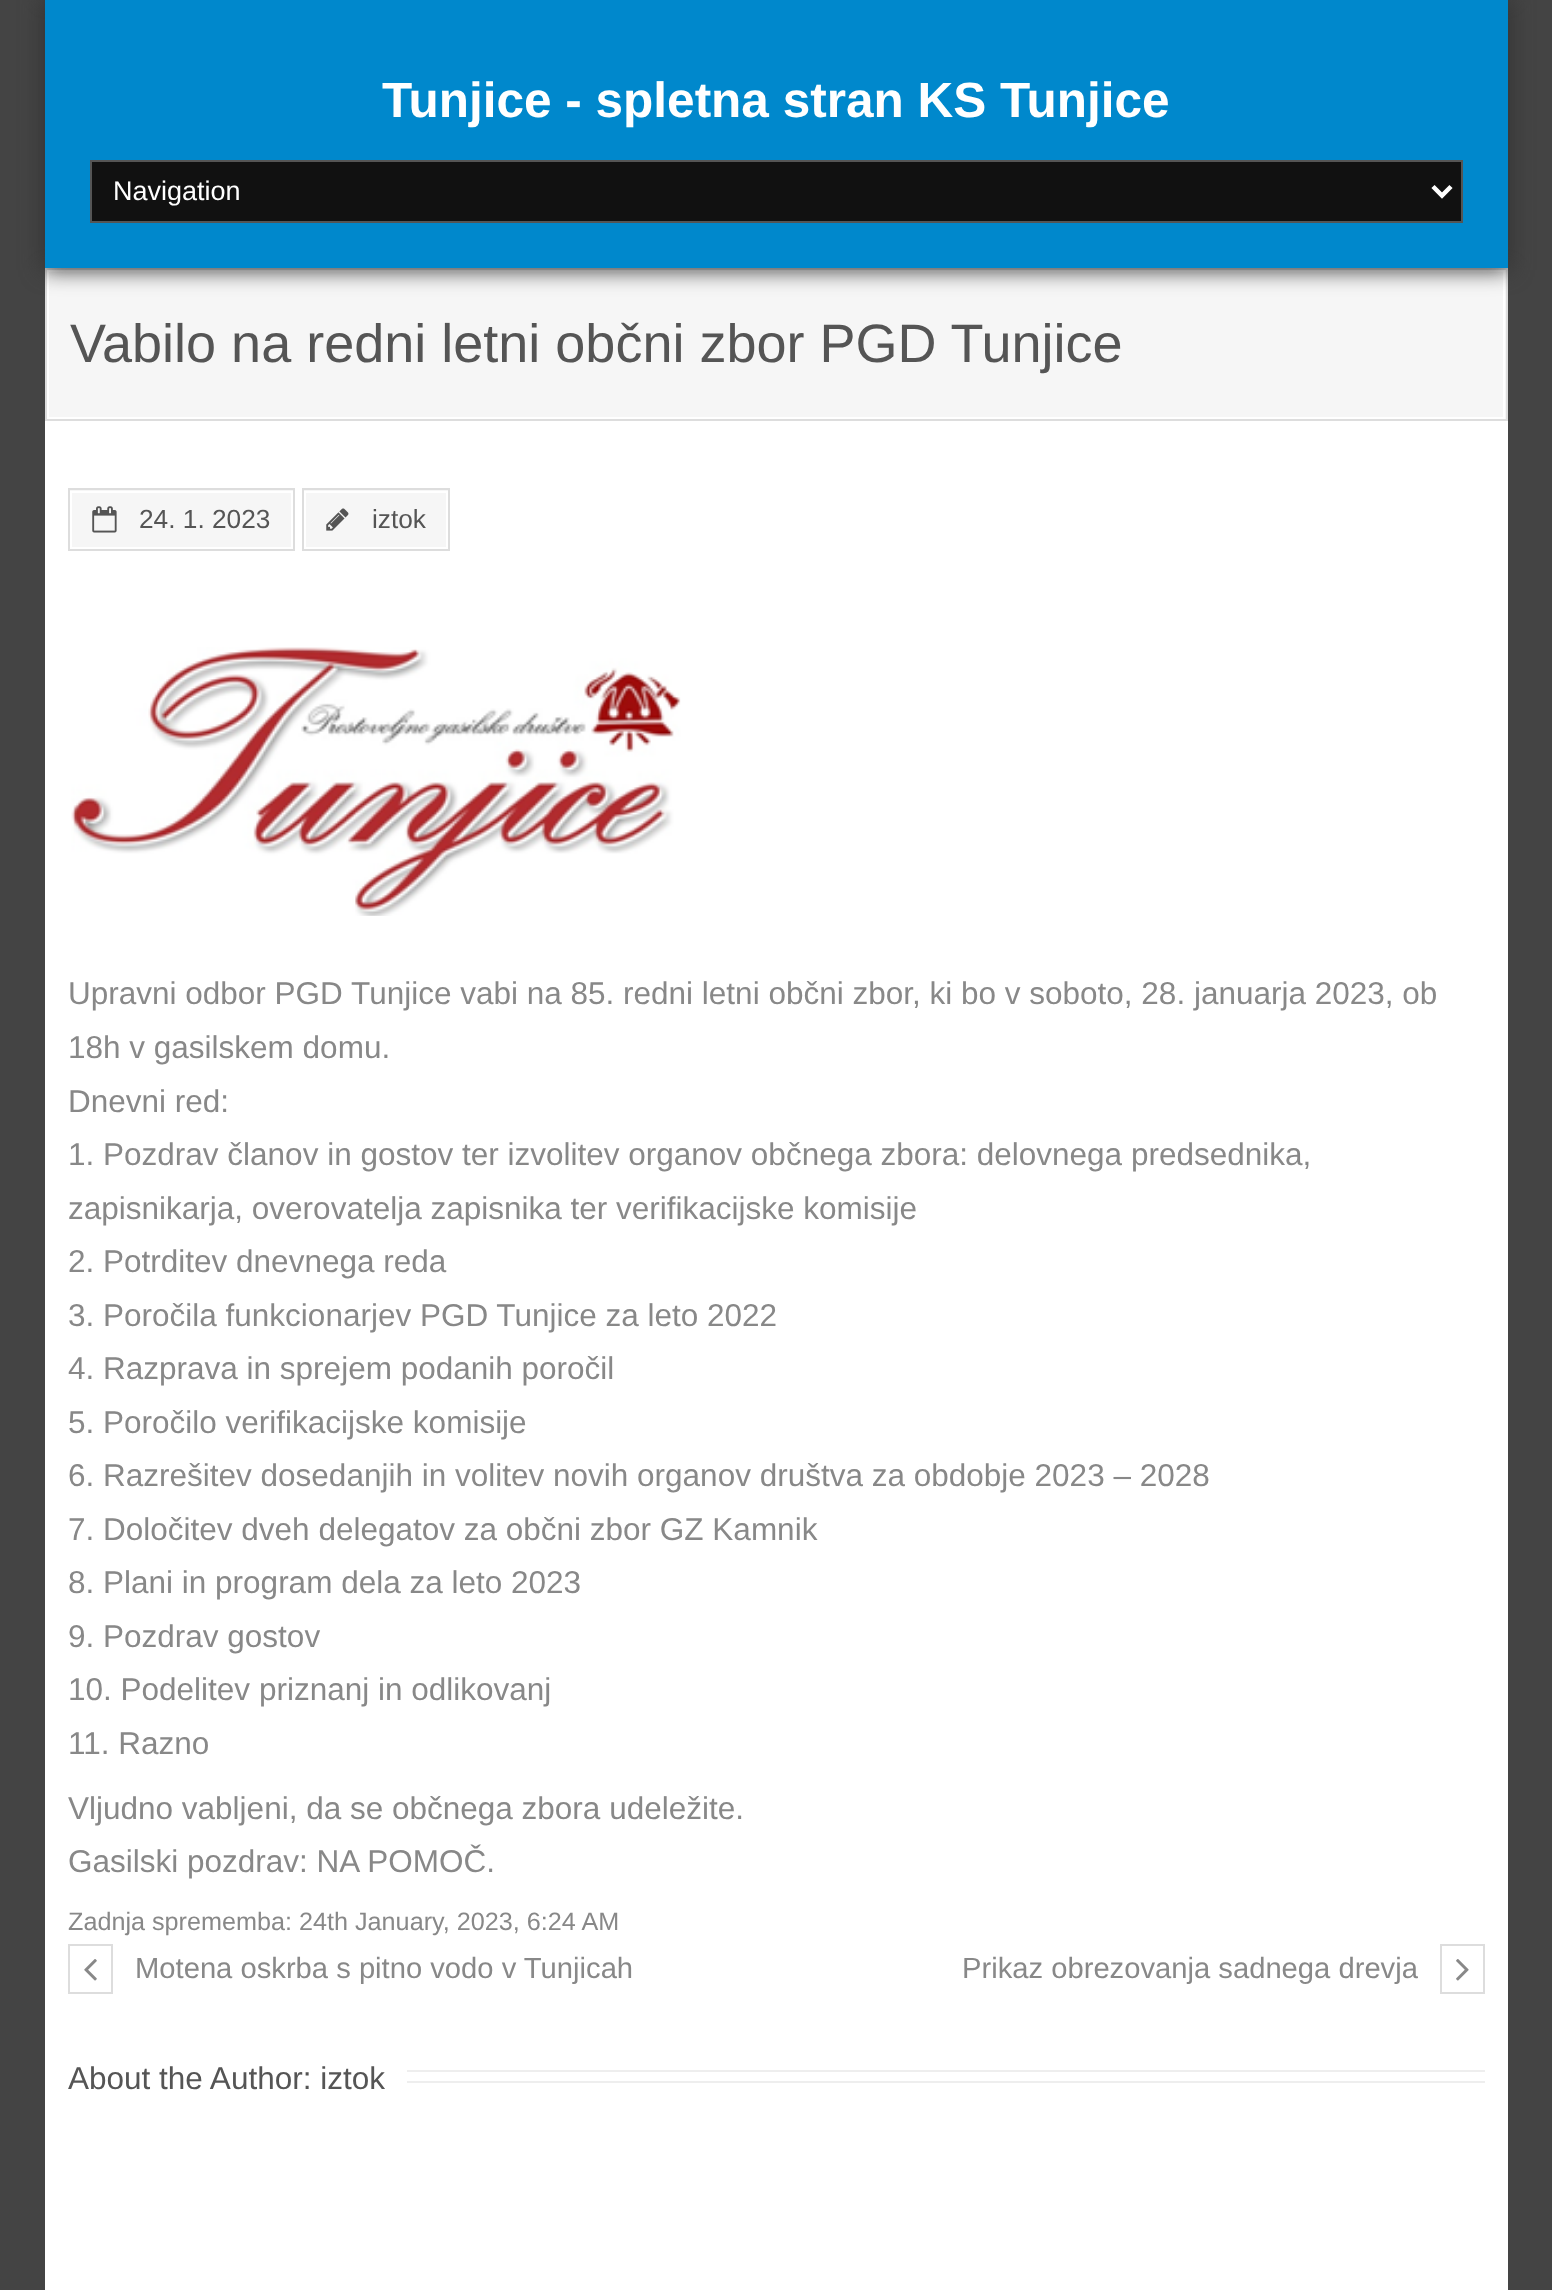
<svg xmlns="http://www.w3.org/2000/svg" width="1552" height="2290">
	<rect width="100%" height="100%" fill="#444444" />
	<rect x="45" y="421" width="1463" height="1869" fill="#FFFFFF" />
	<rect x="49" y="270" width="1457" height="149" fill="#F6F6F6" />
	<rect x="48" y="271" width="1456" height="147" fill="none" stroke="#FFFFFF" stroke-width="2" />
	<rect x="46" y="269" width="1461" height="151" fill="none" stroke="#DDDDDD" stroke-width="2" />
	<rect x="43" y="-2" width="1467" height="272" fill="#333333" filter="blur(11px)" />
	<rect x="45" y="0" width="1463" height="268" fill="#0088CC" />
	<text x="382" y="117" font-family="Liberation Sans" font-size="49.5" font-weight="700" fill="#FFFFFF">Tunjice - spletna stran KS Tunjice</text>
	<rect x="91" y="161" width="1371" height="61" fill="#111111" stroke="#555555" stroke-width="2" />
	<path d="M1433 186.5L1442 195.5L1451 186.5" fill="none" stroke="#FFFFFF" stroke-width="4.5" />
	<text x="113" y="200" font-family="Liberation Sans" font-size="27" fill="#FFFFFF">Navigation</text>
	<text x="70" y="362" font-family="Liberation Sans" font-size="54" fill="#555555">Vabilo na redni letni občni zbor PGD Tunjice</text>
	<rect x="70" y="490" width="223" height="57" fill="#F6F6F6" />
	<rect x="71" y="492" width="221" height="56" fill="none" stroke="#FFFFFF" stroke-width="2" />
	<rect x="69" y="489" width="225" height="61" fill="none" stroke="#DDDDDD" stroke-width="2" />
	<image x="92" y="506" width="25" height="27" href="assets/img1.png" />
	<text x="139" y="528" font-family="Liberation Sans" font-size="26.25" fill="#555555">24. 1. 2023</text>
	<rect x="304" y="490" width="144" height="57" fill="#F6F6F6" />
	<rect x="305" y="492" width="142" height="56" fill="none" stroke="#FFFFFF" stroke-width="2" />
	<rect x="303" y="489" width="146" height="61" fill="none" stroke="#DDDDDD" stroke-width="2" />
	<image x="326" y="508" width="23" height="23" href="assets/img2.png" />
	<text x="372" y="528" font-family="Liberation Sans" font-size="26.25" fill="#555555">iztok</text>
	<image x="71" y="647" width="610" height="269" href="assets/img3.png" />
	<g font-family="Liberation Sans" font-size="31.5" fill="#888888">
		<text x="68" y="1004">Upravni odbor PGD Tunjice vabi na 85. redni letni občni zbor, ki bo v soboto, 28. januarja 2023, ob</text>
		<text x="68" y="1058">18h v gasilskem domu.</text>
		<text x="68" y="1112">Dnevni red:</text>
		<text x="68" y="1165">1. Pozdrav članov in gostov ter izvolitev organov občnega zbora: delovnega predsednika,</text>
		<text x="68" y="1219">zapisnikarja, overovatelja zapisnika ter verifikacijske komisije</text>
		<text x="68" y="1272">2. Potrditev dnevnega reda</text>
		<text x="68" y="1326">3. Poročila funkcionarjev PGD Tunjice za leto 2022</text>
		<text x="68" y="1379">4. Razprava in sprejem podanih poročil</text>
		<text x="68" y="1433">5. Poročilo verifikacijske komisije</text>
		<text x="68" y="1486">6. Razrešitev dosedanjih in volitev novih organov društva za obdobje 2023 – 2028</text>
		<text x="68" y="1540">7. Določitev dveh delegatov za občni zbor GZ Kamnik</text>
		<text x="68" y="1593">8. Plani in program dela za leto 2023</text>
		<text x="68" y="1647">9. Pozdrav gostov</text>
		<text x="68" y="1700">10. Podelitev priznanj in odlikovanj</text>
		<text x="68" y="1754">11. Razno</text>
		<text x="68" y="1819">Vljudno vabljeni, da se občnega zbora udeležite.</text>
		<text x="68" y="1872">Gasilski pozdrav: NA POMOČ.</text>
	</g>
	<text x="68" y="1930" font-family="Liberation Sans" font-size="25.2" fill="#888888">Zadnja sprememba: 24th January, 2023, 6:24 AM</text>
	<rect x="69" y="1945" width="43" height="48" fill="none" stroke="#DDDDDD" stroke-width="2" />
	<image x="84" y="1959" width="13" height="22" href="assets/img4.png" />
	<g font-family="Liberation Sans" font-size="29.2" fill="#888888">
		<text x="135" y="1978">Motena oskrba s pitno vodo v Tunjicah</text>
		<text x="962" y="1978">Prikaz obrezovanja sadnega drevja</text>
	</g>
	<rect x="1441" y="1945" width="43" height="48" fill="none" stroke="#DDDDDD" stroke-width="2" />
	<image x="1456" y="1959" width="13" height="22" href="assets/img5.png" />
	<text x="68" y="2089" font-family="Liberation Sans" font-size="31.5" fill="#555555">About the Author: iztok</text>
	<rect x="407" y="2070" width="1078" height="2" fill="#EEEEEE" />
	<rect x="407" y="2081" width="1078" height="2" fill="#EEEEEE" />
</svg>
